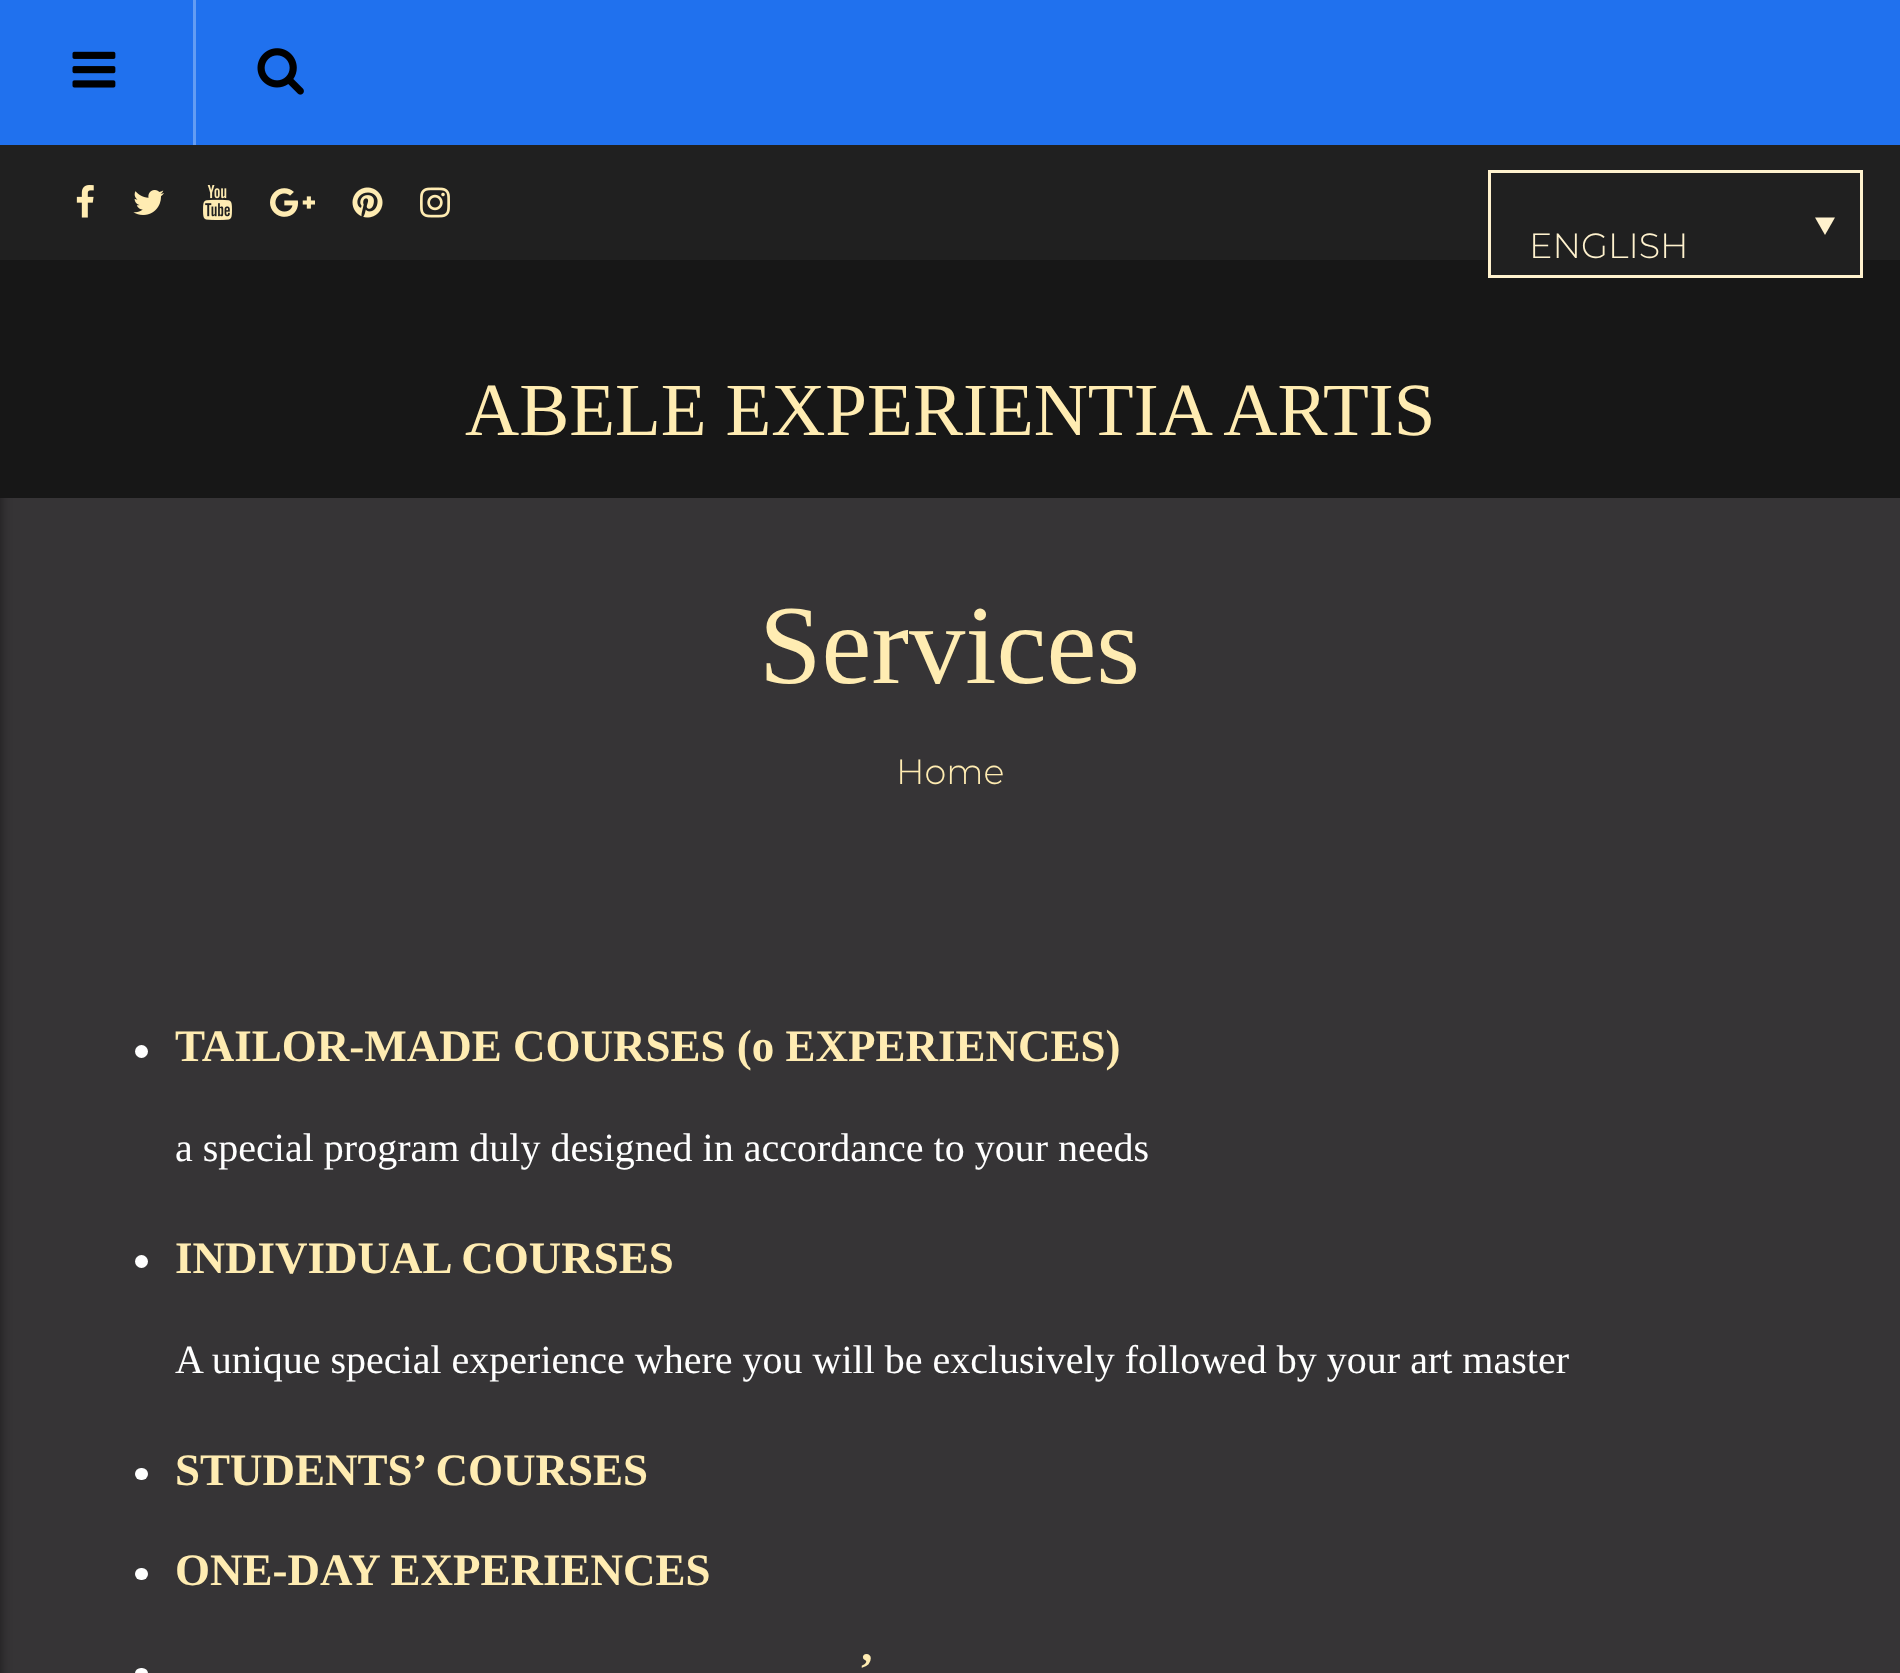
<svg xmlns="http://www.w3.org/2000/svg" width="1900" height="1673">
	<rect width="100%" height="100%" fill="#363436" />
	<rect x="-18" y="0" width="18" height="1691" fill="#000000" fill-opacity="0.5" filter="blur(6px)" />
	<rect x="0" y="0" width="1900" height="145" fill="#2071EE" />
	<image x="72" y="51" width="44" height="37" href="assets/img1.png" />
	<rect x="193" y="0" width="3" height="145" fill="#639CF3" />
	<image x="257" y="48" width="47" height="47" href="assets/img2.png" />
	<rect x="0" y="145" width="1900" height="115" fill="#202020" />
	<image x="76" y="185" width="18" height="33" href="assets/img3.png" />
	<image x="133" y="190" width="31" height="25" href="assets/img4.png" />
	<image x="203" y="185" width="29" height="35" href="assets/img5.png" />
	<image x="270" y="188" width="45" height="29" href="assets/img6.png" />
	<image x="352" y="187" width="31" height="31" href="assets/img7.png" />
	<image x="420" y="187" width="30" height="31" href="assets/img8.png" />
	<rect x="0" y="260" width="1900" height="238" fill="#171717" />
	<rect x="1491" y="260" width="369" height="15" fill="#202020" />
	<rect x="1489.5" y="171.5" width="372" height="105" fill="none" stroke="#FFF2CE" stroke-width="3" />
	<path d="M1815 217.5H1835L1825 235Z" fill="#FFF2CE" />
	<text x="1529" y="258" font-family="Montserrat" font-size="35" font-weight="300" fill="#FFF2CE">ENGLISH</text>
	<text x="465" y="435" font-family="Liberation Serif" font-size="75" fill="#FFECB2">ABELE EXPERIENTIA ARTIS</text>
	<text x="759" y="683" font-family="Liberation Serif" font-size="112.5" fill="#FFECB2">Services</text>
	<text x="896" y="784" font-family="Montserrat" font-size="35" font-weight="300" fill="#FFECB2">Home</text>
	<circle cx="141.5" cy="1051.5" r="6.5" fill="#FFFFFF" />
	<text x="175" y="1061" font-family="Liberation Serif" font-size="45" font-weight="700" fill="#FFECB2">TAILOR-MADE COURSES (o EXPERIENCES)</text>
	<text x="175" y="1161" font-family="Liberation Serif" font-size="40" fill="#FFFFFF">a special program duly designed in accordance to your needs</text>
	<circle cx="141.5" cy="1261.5" r="6.5" fill="#FFFFFF" />
	<text x="175" y="1273" font-family="Liberation Serif" font-size="45" font-weight="700" fill="#FFECB2">INDIVIDUAL COURSES</text>
	<text x="175" y="1373" font-family="Liberation Serif" font-size="40" fill="#FFFFFF">A unique special experience where you will be exclusively followed by your art master</text>
	<rect x="135" y="1468" width="13" height="12" rx="6" fill="#FFFFFF" />
	<text x="175" y="1485" font-family="Liberation Serif" font-size="45" font-weight="700" fill="#FFECB2">STUDENTS’ COURSES</text>
	<rect x="135" y="1568" width="13" height="12" rx="6" fill="#FFFFFF" />
	<g font-family="Liberation Serif" font-size="45" font-weight="700" fill="#FFECB2">
		<text x="175" y="1585">ONE-DAY EXPERIENCES</text>
		<text x="859" y="1684">’</text>
	</g>
	<rect x="135" y="1668" width="13" height="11" rx="6" fill="#FFFFFF" />
</svg>
